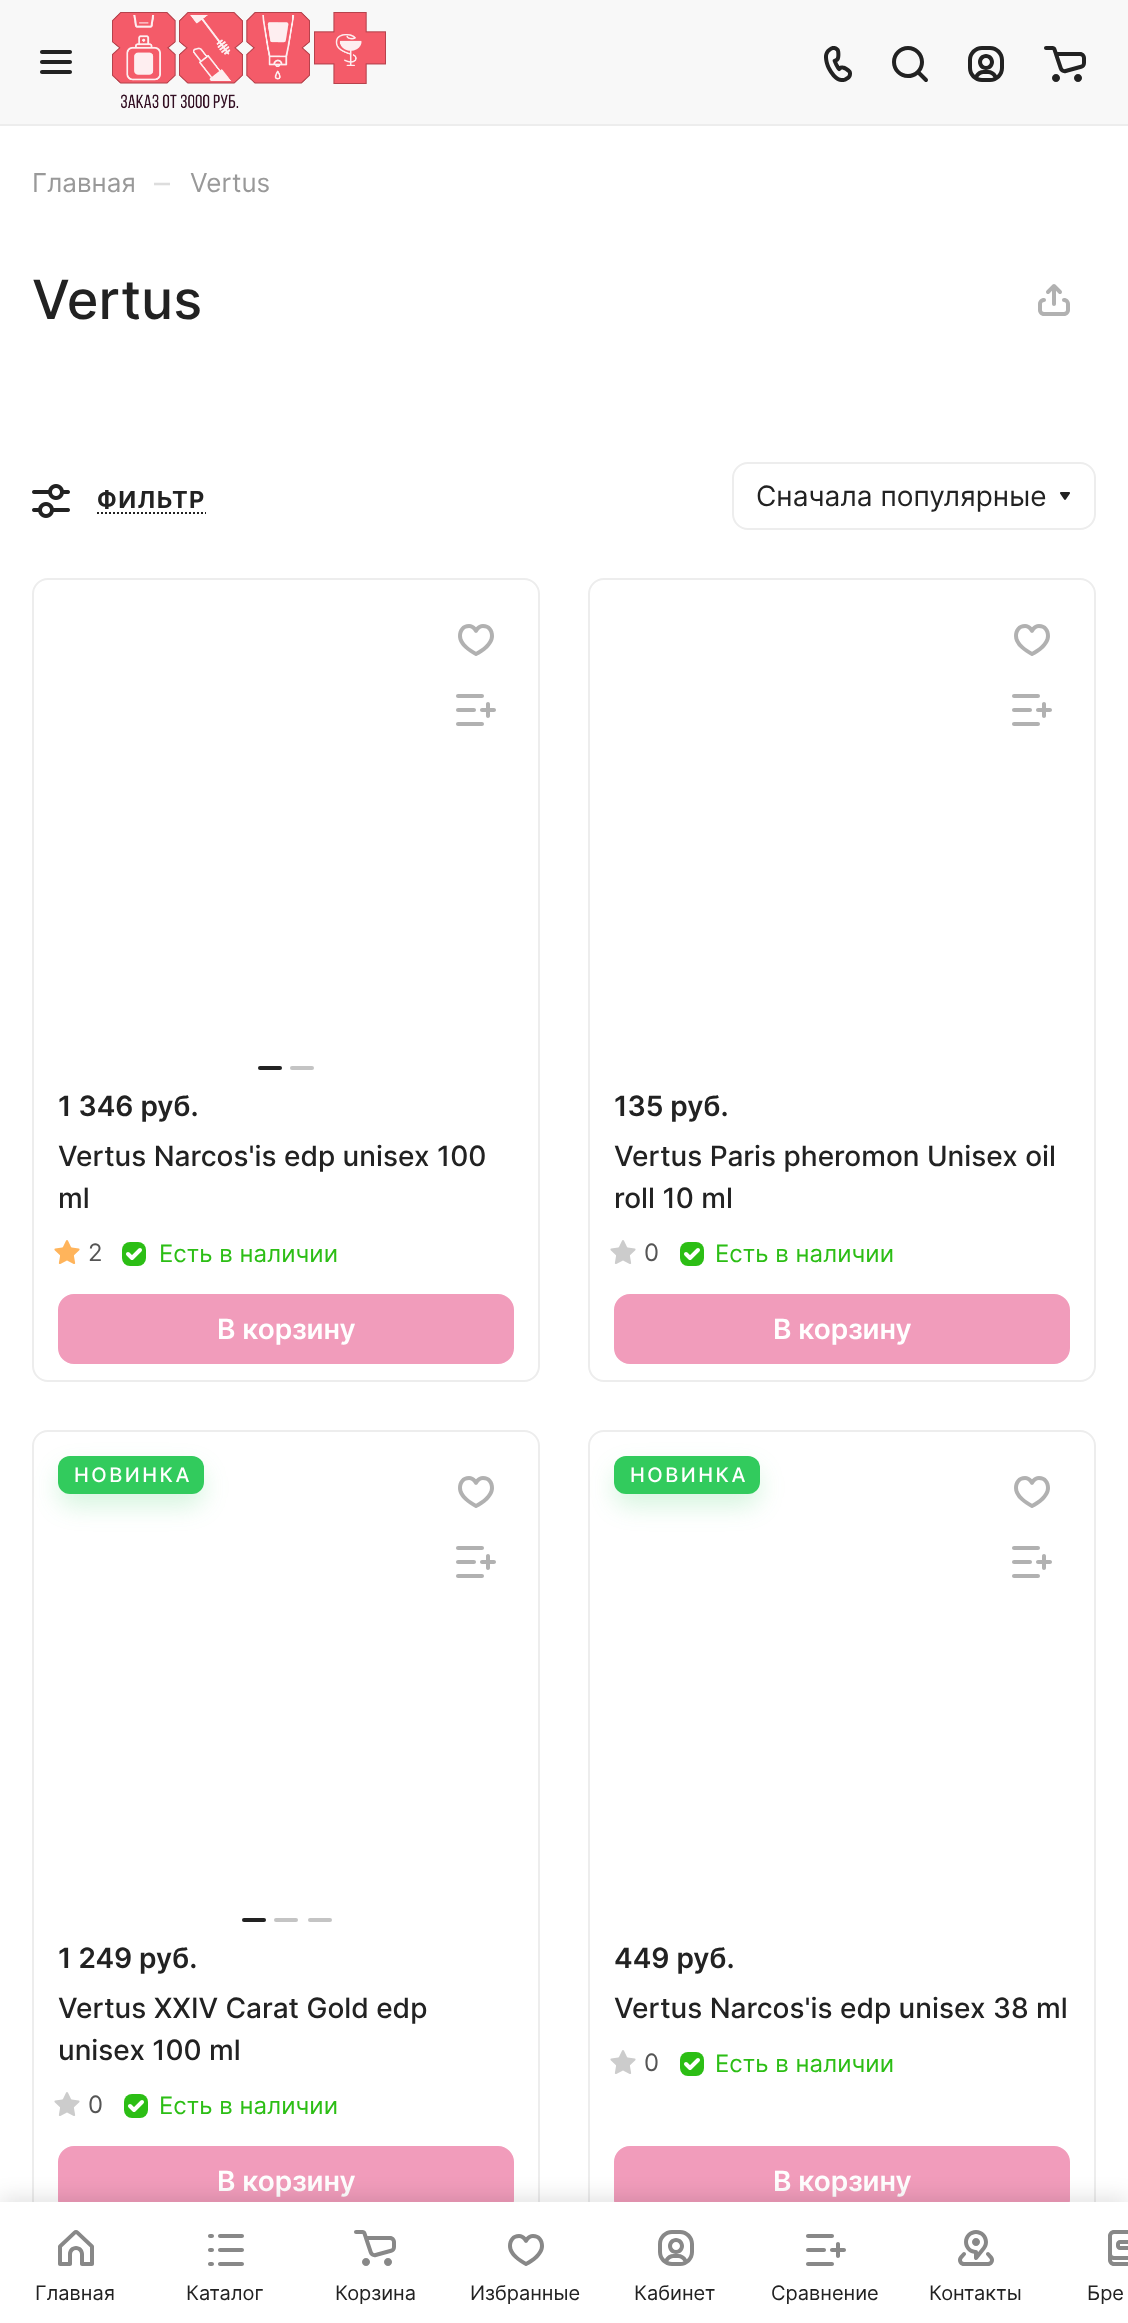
<svg xmlns="http://www.w3.org/2000/svg" width="1128" height="2323">
	<defs>
		<clipPath id="clip1"><path d="M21 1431H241V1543H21ZM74 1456H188C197 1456 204 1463 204 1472V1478C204 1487 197 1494 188 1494H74C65 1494 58 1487 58 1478V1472C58 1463 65 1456 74 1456Z" clip-rule="evenodd" /></clipPath>
		<clipPath id="clip2"><path d="M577 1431H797V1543H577ZM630 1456H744C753 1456 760 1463 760 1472V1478C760 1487 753 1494 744 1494H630C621 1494 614 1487 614 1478V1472C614 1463 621 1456 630 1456Z" clip-rule="evenodd" /></clipPath>
	</defs>
	<rect width="100%" height="100%" fill="#FFFFFF" />
	<rect x="0" y="124" width="1128" height="2" fill="#EDEDED" />
	<rect x="0" y="0" width="1128" height="124" fill="#F8F8F8" />
	<image x="40" y="50" width="32" height="24" href="assets/img1.png" />
	<image x="112" y="12" width="274" height="97" href="assets/img2.png" />
	<image x="824" y="46" width="28" height="36" href="assets/img3.png" />
	<image x="892" y="46" width="36" height="36" href="assets/img4.png" />
	<image x="968" y="46" width="36" height="36" href="assets/img5.png" />
	<image x="1044" y="46" width="42" height="36" href="assets/img6.png" />
	<text x="32" y="192" font-family="Inter" font-size="26" fill="#999999">Главная</text>
	<text x="154" y="194" font-family="Inter" font-size="32" fill="#DDDDDD">–</text>
	<text x="190" y="192" font-family="Inter" font-size="26" fill="#999999">Vertus</text>
	<text x="32" y="319" font-family="Inter" font-size="54" font-weight="500" fill="#222222">Vertus</text>
	<image x="1038" y="284" width="32" height="32" href="assets/img7.png" />
	<image x="32" y="484" width="38" height="34" href="assets/img8.png" />
	<text x="97" y="508" font-family="Inter" font-size="23.5" font-weight="700" letter-spacing="1.5" fill="#222222">ФИЛЬТР</text>
	<path d="M97 513H206" fill="none" stroke="#222222" stroke-width="2" stroke-dasharray="2 2" />
	<rect x="733" y="463" width="362" height="66" rx="15" fill="none" stroke="#EDEDED" stroke-width="2" />
	<text x="756" y="506" font-family="Inter" font-size="28" fill="#222222">Сначала популярные</text>
	<image x="1060" y="492" width="10" height="8" href="assets/img9.png" />
	<rect x="33" y="579" width="506" height="802" rx="15" fill="none" stroke="#EDEDED" stroke-width="2" />
	<image x="458" y="624" width="36" height="32" href="assets/img10.png" />
	<image x="456" y="694" width="40" height="32" href="assets/img11.png" />
	<rect x="258" y="1066" width="24" height="4" rx="2" fill="#222222" />
	<rect x="290" y="1066" width="24" height="4" rx="2" fill="#C4C4C4" />
	<text x="58" y="1116" font-family="Inter" font-size="28" font-weight="600" fill="#222222">1 346 руб.</text>
	<g font-family="Inter" font-size="28" font-weight="500" fill="#222222">
		<text x="58" y="1166">Vertus Narcos'is edp unisex 100</text>
		<text x="58" y="1208">ml</text>
	</g>
	<image x="54" y="1240" width="26" height="24" href="assets/img12.png" />
	<text x="88" y="1261" font-family="Inter" font-size="24" fill="#555555">2</text>
	<image x="122" y="1242" width="24" height="24" href="assets/img13.png" />
	<text x="159" y="1262" font-family="Inter" font-size="24" fill="#2CBE15">Есть в наличии</text>
	<rect x="59" y="1295" width="454" height="68" rx="15" fill="#F19CBB" stroke="#F19CBB" stroke-width="2" />
	<text x="217" y="1339" font-family="Inter" font-size="28" font-weight="600" fill="#FFFFFF">В корзину</text>
	<rect x="589" y="579" width="506" height="802" rx="15" fill="none" stroke="#EDEDED" stroke-width="2" />
	<image x="1014" y="624" width="36" height="32" href="assets/img14.png" />
	<image x="1012" y="694" width="40" height="32" href="assets/img11.png" />
	<text x="614" y="1116" font-family="Inter" font-size="28" font-weight="600" fill="#222222">135 руб.</text>
	<g font-family="Inter" font-size="28" font-weight="500" fill="#222222">
		<text x="614" y="1166">Vertus Paris pheromon Unisex oil</text>
		<text x="614" y="1208">roll 10 ml</text>
	</g>
	<image x="610" y="1240" width="26" height="24" href="assets/img15.png" />
	<text x="644" y="1261" font-family="Inter" font-size="24" fill="#555555">0</text>
	<image x="680" y="1242" width="24" height="24" href="assets/img13.png" />
	<text x="715" y="1262" font-family="Inter" font-size="24" fill="#2CBE15">Есть в наличии</text>
	<rect x="615" y="1295" width="454" height="68" rx="15" fill="#F19CBB" stroke="#F19CBB" stroke-width="2" />
	<text x="773" y="1339" font-family="Inter" font-size="28" font-weight="600" fill="#FFFFFF">В корзину</text>
	<rect x="33" y="1431" width="506" height="802" rx="15" fill="none" stroke="#EDEDED" stroke-width="2" />
	<rect x="58" y="1456" width="146" height="38" rx="12" fill="#32CB5D" />
	<g clip-path="url(#clip1)">
		<rect x="58" y="1468" width="146" height="38" rx="16" fill="#32CB5D" fill-opacity="0.2" filter="blur(12px)" />
	</g>
	<text x="74" y="1482" font-family="Inter" font-size="20" font-weight="500" letter-spacing="2.5" fill="#FFFFFF">НОВИНКА</text>
	<image x="458" y="1476" width="36" height="32" href="assets/img10.png" />
	<image x="456" y="1546" width="40" height="32" href="assets/img11.png" />
	<rect x="242" y="1918" width="24" height="4" rx="2" fill="#222222" />
	<rect x="274" y="1918" width="24" height="4" rx="2" fill="#C4C4C4" />
	<rect x="308" y="1918" width="24" height="4" rx="2" fill="#C4C4C4" />
	<text x="58" y="1968" font-family="Inter" font-size="28" font-weight="600" fill="#222222">1 249 руб.</text>
	<g font-family="Inter" font-size="28" font-weight="500" fill="#222222">
		<text x="58" y="2018">Vertus XXIV Carat Gold edp</text>
		<text x="58" y="2060">unisex 100 ml</text>
	</g>
	<image x="54" y="2092" width="26" height="24" href="assets/img15.png" />
	<text x="88" y="2113" font-family="Inter" font-size="24" fill="#555555">0</text>
	<image x="124" y="2094" width="24" height="24" href="assets/img13.png" />
	<text x="159" y="2114" font-family="Inter" font-size="24" fill="#2CBE15">Есть в наличии</text>
	<rect x="59" y="2147" width="454" height="68" rx="15" fill="#F19CBB" stroke="#F19CBB" stroke-width="2" />
	<text x="217" y="2191" font-family="Inter" font-size="28" font-weight="600" fill="#FFFFFF">В корзину</text>
	<rect x="589" y="1431" width="506" height="802" rx="15" fill="none" stroke="#EDEDED" stroke-width="2" />
	<rect x="614" y="1456" width="146" height="38" rx="12" fill="#32CB5D" />
	<g clip-path="url(#clip2)">
		<rect x="614" y="1468" width="146" height="38" rx="16" fill="#32CB5D" fill-opacity="0.2" filter="blur(12px)" />
	</g>
	<text x="630" y="1482" font-family="Inter" font-size="20" font-weight="500" letter-spacing="2.5" fill="#FFFFFF">НОВИНКА</text>
	<image x="1014" y="1476" width="36" height="32" href="assets/img14.png" />
	<image x="1012" y="1546" width="40" height="32" href="assets/img11.png" />
	<text x="614" y="1968" font-family="Inter" font-size="28" font-weight="600" fill="#222222">449 руб.</text>
	<text x="614" y="2018" font-family="Inter" font-size="28" font-weight="500" fill="#222222">Vertus Narcos'is edp unisex 38 ml</text>
	<image x="610" y="2050" width="26" height="24" href="assets/img15.png" />
	<text x="644" y="2071" font-family="Inter" font-size="24" fill="#555555">0</text>
	<image x="680" y="2052" width="24" height="24" href="assets/img13.png" />
	<text x="715" y="2072" font-family="Inter" font-size="24" fill="#2CBE15">Есть в наличии</text>
	<rect x="615" y="2147" width="454" height="68" rx="15" fill="#F19CBB" stroke="#F19CBB" stroke-width="2" />
	<text x="773" y="2191" font-family="Inter" font-size="28" font-weight="600" fill="#FFFFFF">В корзину</text>
	<rect x="0" y="2196" width="1128" height="122" fill="#000000" fill-opacity="0.1" filter="blur(10px)" />
	<rect x="0" y="2202" width="1128" height="121" fill="#FFFFFF" />
	<image x="58" y="2230" width="36" height="36" href="assets/img16.png" />
	<text x="35" y="2300" font-family="Inter" font-size="20" fill="#222222">Главная</text>
	<image x="208" y="2234" width="36" height="32" href="assets/img17.png" />
	<text x="186" y="2300" font-family="Inter" font-size="20" fill="#222222">Каталог</text>
	<image x="354" y="2230" width="42" height="36" href="assets/img18.png" />
	<text x="335" y="2300" font-family="Inter" font-size="20" fill="#222222">Корзина</text>
	<image x="508" y="2234" width="36" height="32" href="assets/img19.png" />
	<text x="470" y="2300" font-family="Inter" font-size="20" fill="#222222">Избранные</text>
	<image x="658" y="2230" width="36" height="36" href="assets/img20.png" />
	<text x="634" y="2300" font-family="Inter" font-size="20" fill="#222222">Кабинет</text>
	<image x="806" y="2234" width="40" height="32" href="assets/img21.png" />
	<text x="771" y="2300" font-family="Inter" font-size="20" fill="#222222">Сравнение</text>
	<image x="958" y="2230" width="36" height="36" href="assets/img22.png" />
	<text x="929" y="2300" font-family="Inter" font-size="20" fill="#222222">Контакты</text>
	<image x="1108" y="2230" width="20" height="36" href="assets/img23.png" />
	<text x="1087" y="2300" font-family="Inter" font-size="20" fill="#222222">Бре</text>
</svg>
